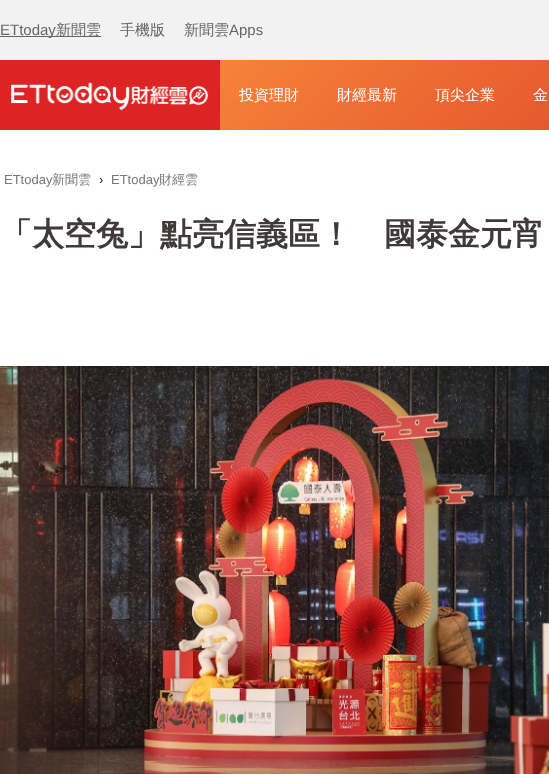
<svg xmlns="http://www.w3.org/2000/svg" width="549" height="774">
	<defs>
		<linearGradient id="g1" gradientUnits="userSpaceOnUse" x1="283" y1="-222" x2="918" y2="412"><stop offset="0" stop-color="#FF9941" /><stop offset="1" stop-color="#CC1518" /></linearGradient>
	</defs>
	<rect width="100%" height="100%" fill="#FFFFFF" />
	<rect x="0" y="0" width="549" height="60" fill="#F2F2F2" />
	<rect x="0" y="36" width="101" height="1" fill="#666666" />
	<text x="0" y="35" font-family="Liberation Sans" font-size="15" fill="#666666">ETtoday</text>
	<g font-family="WenQuanYi Zen Hei" font-size="15" font-weight="500" fill="#666666">
		<text x="56" y="35">新聞雲</text>
		<text x="120" y="35">手機版</text>
		<text x="184" y="35">新聞雲</text>
	</g>
	<text x="229" y="35" font-family="Liberation Sans" font-size="15" fill="#666666">Apps</text>
	<rect x="220" y="60" width="329" height="70" fill="url(#g1)" />
	<rect x="0" y="60" width="220" height="70" fill="#DD2424" />
	<image x="11" y="82" width="198" height="28" href="assets/img1.png" />
	<g font-family="WenQuanYi Zen Hei" font-size="15" font-weight="500" fill="#FFFFFF">
		<text x="239" y="100">投資理財</text>
		<text x="337" y="100">財經最新</text>
		<text x="435" y="100">頂尖企業</text>
		<text x="533" y="100">金</text>
	</g>
	<text x="4" y="184" font-family="Liberation Sans" font-size="13" fill="#777777">ETtoday</text>
	<text x="52" y="184" font-family="WenQuanYi Zen Hei" font-size="13" font-weight="500" fill="#777777">新聞雲</text>
	<text x="99" y="184" font-family="Liberation Sans" font-size="13" fill="#000000">›</text>
	<text x="111" y="184" font-family="Liberation Sans" font-size="13" fill="#777777">ETtoday</text>
	<text x="159" y="184" font-family="WenQuanYi Zen Hei" font-size="13" font-weight="500" fill="#777777">財經雲</text>
	<text x="0" y="245" font-family="WenQuanYi Zen Hei" font-size="32" font-weight="700" fill="#3F3A39">「太空兔」點亮信義區！　國泰金元宵</text>
	<image x="0" y="366" width="549" height="408" href="assets/img2.png" />
</svg>
